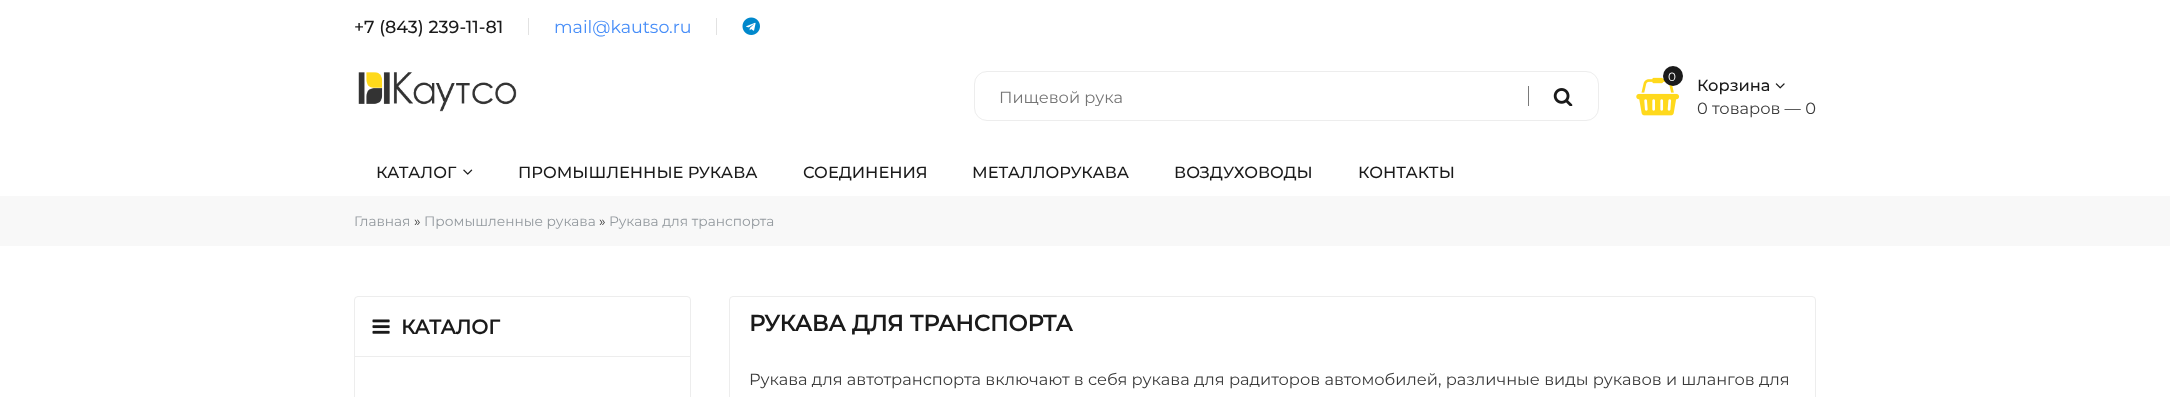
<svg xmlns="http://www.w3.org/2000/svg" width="2170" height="397">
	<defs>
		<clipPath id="clip1"><rect x="1000" y="86" width="425" height="20" /></clipPath>
	</defs>
	<rect width="100%" height="100%" fill="#FFFFFF" />
	<text x="354" y="33" font-family="Montserrat" font-size="17.5" font-weight="500" fill="#1A1A1A">+7 (843) 239-11-81</text>
	<rect x="528" y="18" width="1" height="17" fill="#E2E2E2" />
	<text x="554" y="33" font-family="Montserrat" font-size="17.5" fill="#468DF8">mail@kautso.ru</text>
	<rect x="716" y="18" width="1" height="17" fill="#E2E2E2" />
	<image x="742" y="17" width="18" height="18" href="assets/img1.png" />
	<image x="358" y="72" width="159" height="40" href="assets/img2.png" />
	<rect x="974.5" y="71.5" width="624" height="49" rx="12.5" fill="none" stroke="#EDEDED" />
	<g clip-path="url(#clip1)">
		<text x="999" y="103" font-family="Montserrat" font-size="16.25" fill="#757575">Пищевой рука</text>
	</g>
	<rect x="1528" y="86" width="1" height="20" fill="#7A7A7A" />
	<image x="1553" y="88" width="20" height="18" href="assets/img3.png" />
	<image x="1636" y="77" width="44" height="39" href="assets/img4.png" />
	<circle cx="1673" cy="76" r="10" fill="#1A1A1A" />
	<text x="1668" y="81" font-family="Montserrat" font-size="12" fill="#FFFFFF">0</text>
	<text x="1697" y="91" font-family="Montserrat" font-size="16.25" font-weight="500" fill="#1A1A1A">Корзина</text>
	<image x="1775" y="83" width="10" height="6" href="assets/img5.png" />
	<text x="1697" y="114" font-family="Montserrat" font-size="16.25" fill="#3A3A3A">0 товаров — 0</text>
	<text x="376" y="178" font-family="Montserrat" font-size="16.25" font-weight="500" fill="#1A1A1A">КАТАЛОГ</text>
	<image x="463" y="169" width="10" height="6" href="assets/img6.png" />
	<g font-family="Montserrat" font-size="16.25" font-weight="500" fill="#1A1A1A">
		<text x="518" y="178">ПРОМЫШЛЕННЫЕ РУКАВА</text>
		<text x="803" y="178">СОЕДИНЕНИЯ</text>
		<text x="972" y="178">МЕТАЛЛОРУКАВА</text>
		<text x="1174" y="178">ВОЗДУХОВОДЫ</text>
		<text x="1358" y="178">КОНТАКТЫ</text>
	</g>
	<rect x="0" y="196" width="2170" height="50" fill="#F8F8F8" />
	<text x="354" y="226" font-family="Montserrat" font-size="13.75" fill="#93999E">Главная</text>
	<text x="414" y="226" font-family="Montserrat" font-size="13.75" fill="#3A3A3A">»</text>
	<text x="424" y="226" font-family="Montserrat" font-size="13.75" fill="#93999E">Промышленные рукава</text>
	<text x="599" y="226" font-family="Montserrat" font-size="13.75" fill="#3A3A3A">»</text>
	<text x="609" y="226" font-family="Montserrat" font-size="13.75" fill="#93999E">Рукава для транспорта</text>
	<rect x="354.5" y="296.5" width="336" height="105" rx="3.5" fill="none" stroke="#EDEDED" />
	<rect x="355" y="356" width="335" height="1" fill="#EDEDED" />
	<image x="372" y="319" width="18" height="15" href="assets/img7.png" />
	<text x="401" y="334" font-family="Montserrat" font-size="20" font-weight="700" fill="#1A1A1A">КАТАЛОГ</text>
	<rect x="729.5" y="296.5" width="1086" height="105" rx="3.5" fill="none" stroke="#EDEDED" />
	<text x="749" y="331" font-family="Montserrat" font-size="22.5" font-weight="700" fill="#1A1A1A">РУКАВА ДЛЯ ТРАНСПОРТА</text>
	<text x="749" y="385" font-family="Montserrat" font-size="16.25" fill="#3A3A3A">Рукава для автотранспорта включают в себя рукава для радиторов автомобилей, различные виды рукавов и шлангов для</text>
</svg>
